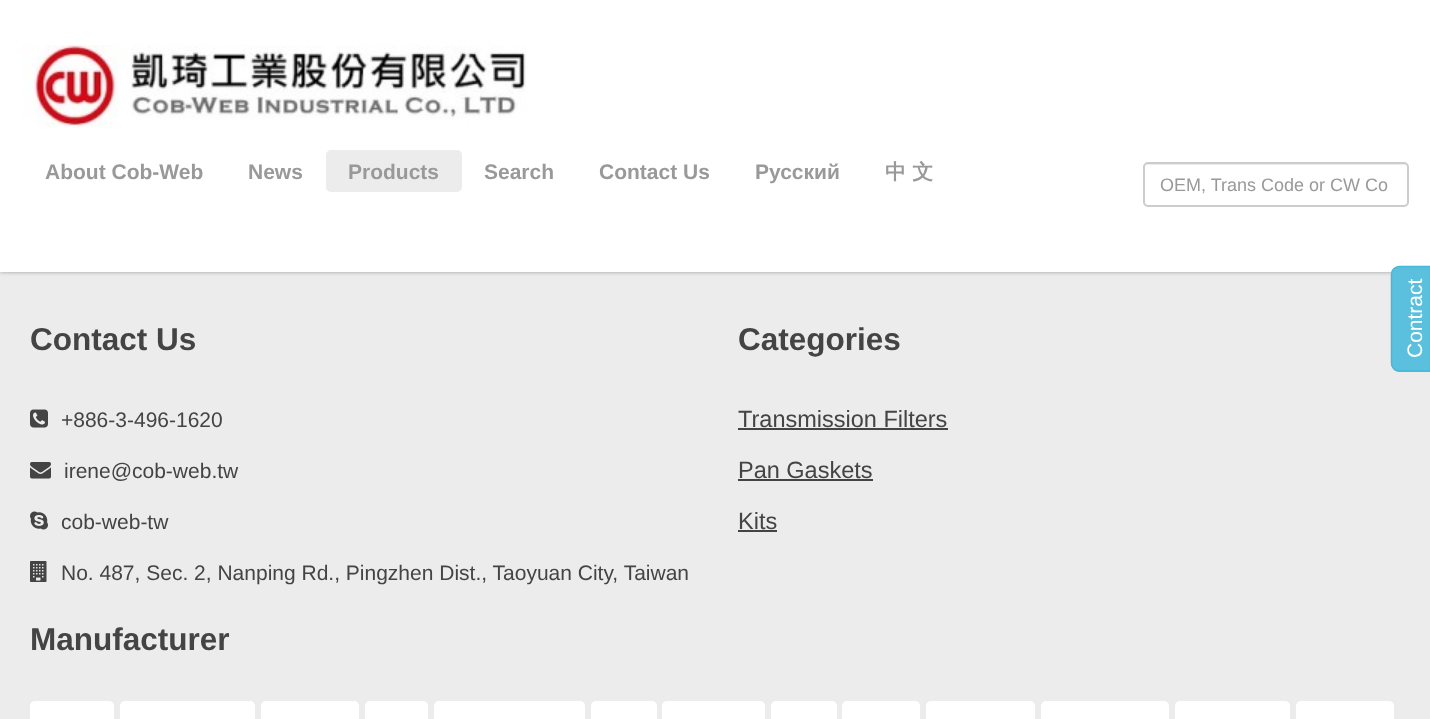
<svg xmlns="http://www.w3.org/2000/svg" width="1430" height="719">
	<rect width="100%" height="100%" fill="#ECECEC" />
	<rect x="0" y="0" width="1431" height="272" fill="#000000" fill-opacity="0.33" filter="blur(2px)" />
	<rect x="0" y="0" width="1430" height="272" fill="#FFFFFF" />
	<image x="22" y="45" width="504" height="83" href="assets/img1.png" />
	<g font-family="Liberation Sans" font-size="21" font-weight="700" fill="#999999">
		<text x="45" y="179">About Cob-Web</text>
		<text x="248" y="179">News</text>
	</g>
	<rect x="326" y="150" width="136" height="42" rx="5" fill="#ECECEC" />
	<g font-family="Liberation Sans" font-size="21" font-weight="700" fill="#999999">
		<text x="348" y="179">Products</text>
		<text x="484" y="179">Search</text>
		<text x="599" y="179">Contact Us</text>
		<text x="755" y="179">Русский</text>
	</g>
	<text x="885" y="179" font-family="WenQuanYi Zen Hei" font-size="21" font-weight="700" fill="#999999">中 文</text>
	<path d="M1148 165H1405L1407 166V168V167C1407 165 1406 164 1404 164H1148C1147 164 1146 165 1145 166Z" fill="#ECECEC" />
	<rect x="1144" y="163" width="264" height="43" rx="4" fill="none" stroke="#CCCCCC" stroke-width="2" />
	<text x="1160" y="191" font-family="Liberation Sans" font-size="18" fill="#999999">OEM, Trans Code or CW Co</text>
	<path d="M1391 363V275C1391 270 1395 266 1400 266H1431V372H1400C1395 372 1391 368 1391 363Z" fill="#5BC0DE" />
	<path d="M1391.5 363V274.5C1391.5 270 1395 266.5 1399.5 266.5H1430.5V371H1399.5C1395 371 1391.5 367.5 1391.5 363Z" fill="none" stroke="#46B8DA" stroke-width="1.5" />
	<text x="1422" y="358" transform="rotate(-90 1422 358)" font-family="Liberation Sans" font-size="21" fill="#FFFFFF">Contract</text>
	<text x="30" y="350" font-family="Liberation Sans" font-size="31.5" font-weight="700" fill="#444444">Contact Us</text>
	<image x="30" y="409" width="18" height="19" href="assets/img2.png" />
	<text x="61" y="427" font-family="Liberation Sans" font-size="21" fill="#444444">+886-3-496-1620</text>
	<image x="30" y="462" width="21" height="17" href="assets/img3.png" />
	<text x="64" y="478" font-family="Liberation Sans" font-size="21" fill="#444444">irene@cob-web.tw</text>
	<image x="30" y="511" width="18" height="19" href="assets/img4.png" />
	<text x="61" y="529" font-family="Liberation Sans" font-size="21" fill="#444444">cob-web-tw</text>
	<image x="30" y="561" width="17" height="21" href="assets/img5.png" />
	<text x="61" y="580" font-family="Liberation Sans" font-size="21" fill="#444444">No. 487, Sec. 2, Nanping Rd., Pingzhen Dist., Taoyuan City, Taiwan</text>
	<text x="738" y="350" font-family="Liberation Sans" font-size="31.5" font-weight="700" fill="#444444">Categories</text>
	<text x="738" y="427" font-family="Liberation Sans" font-size="23.5" fill="#444444">Transmission Filters</text>
	<rect x="738" y="428" width="210" height="2" fill="#444444" />
	<text x="738" y="478" font-family="Liberation Sans" font-size="23.5" fill="#444444">Pan Gaskets</text>
	<rect x="738" y="479" width="135" height="2" fill="#444444" />
	<text x="738" y="529" font-family="Liberation Sans" font-size="23.5" fill="#444444">Kits</text>
	<rect x="738" y="530" width="39" height="2" fill="#444444" />
	<text x="30" y="650" font-family="Liberation Sans" font-size="31.5" font-weight="700" fill="#444444">Manufacturer</text>
	<rect x="30" y="701" width="84" height="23" rx="5" fill="#FFFFFF" />
	<rect x="120" y="701" width="135" height="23" rx="5" fill="#FFFFFF" />
	<rect x="261" y="701" width="98" height="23" rx="5" fill="#FFFFFF" />
	<rect x="365" y="701" width="63" height="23" rx="5" fill="#FFFFFF" />
	<rect x="434" y="701" width="151" height="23" rx="5" fill="#FFFFFF" />
	<rect x="591" y="701" width="66" height="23" rx="5" fill="#FFFFFF" />
	<rect x="662" y="701" width="103" height="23" rx="5" fill="#FFFFFF" />
	<rect x="771" y="701" width="66" height="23" rx="5" fill="#FFFFFF" />
	<rect x="842" y="701" width="78" height="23" rx="5" fill="#FFFFFF" />
	<rect x="926" y="701" width="109" height="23" rx="5" fill="#FFFFFF" />
	<rect x="1041" y="701" width="128" height="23" rx="5" fill="#FFFFFF" />
	<rect x="1175" y="701" width="115" height="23" rx="5" fill="#FFFFFF" />
	<rect x="1296" y="701" width="98" height="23" rx="5" fill="#FFFFFF" />
</svg>
